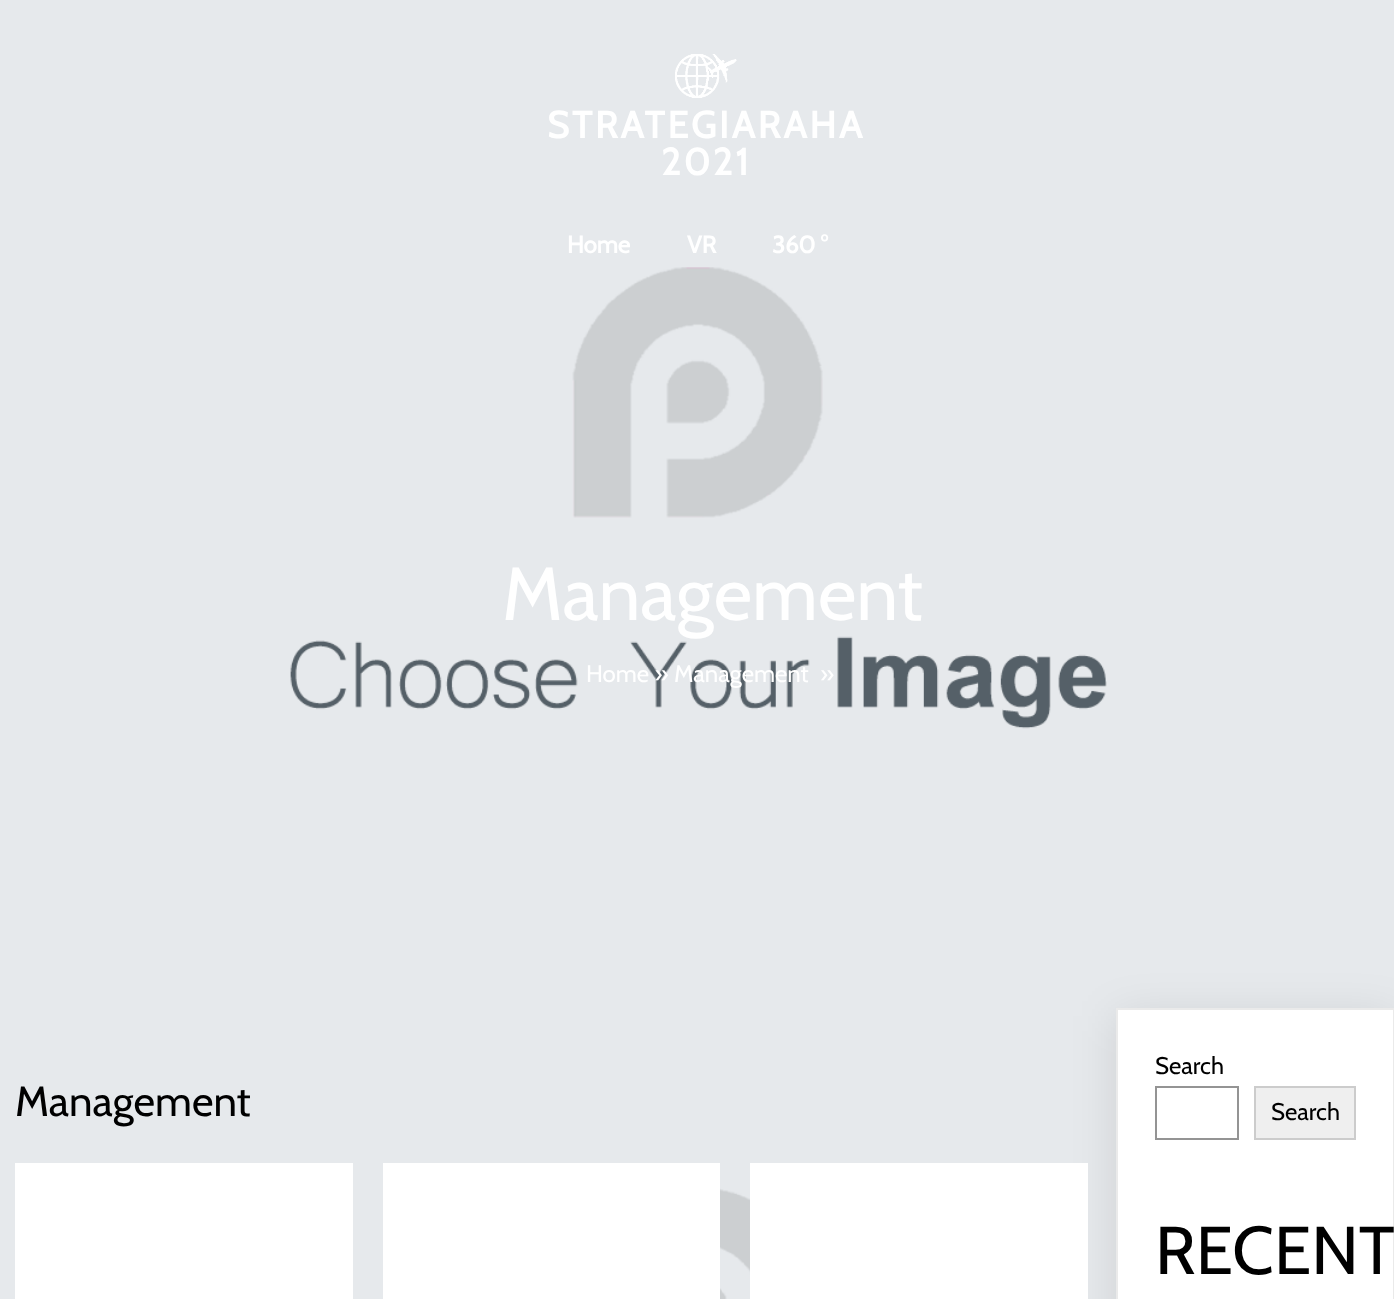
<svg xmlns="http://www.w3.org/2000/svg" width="1394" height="1299">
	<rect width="100%" height="100%" fill="#FFFFFF" />
	<image x="0" y="0" width="1394" height="1299" href="assets/img1.png" />
	<image x="290" y="258" width="817" height="471" href="assets/img2.png" />
	<image x="675" y="54" width="62" height="44" href="assets/img3.png" />
	<g font-family="Cabin" font-size="37.5" font-weight="700" letter-spacing="3" fill="#FFFFFF">
		<text x="547" y="138">STRATEGIARAHA</text>
		<text x="661" y="175">2021</text>
	</g>
	<g font-family="Cabin" font-size="24" font-weight="700" fill="#FFFFFF">
		<text x="567" y="253">Home</text>
		<text x="687" y="253">VR</text>
		<text x="772" y="253">360 °</text>
	</g>
	<text x="502" y="620" font-family="Cabin" font-size="75" fill="#FFFFFF">Management</text>
	<g font-family="Cabin" font-size="24" fill="#FFFFFF">
		<text x="586" y="682">Home » Management</text>
		<text x="820" y="682">»</text>
	</g>
	<text x="15" y="1116" font-family="Cabin" font-size="42" fill="#000000">Management</text>
	<rect x="15" y="1163" width="338" height="136" fill="#FFFFFF" />
	<rect x="383" y="1163" width="337" height="136" fill="#FFFFFF" />
	<rect x="1116" y="1016" width="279" height="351" fill="#000000" fill-opacity="0.1" filter="blur(22.5px)" />
	<rect x="750" y="1163" width="338" height="136" fill="#FFFFFF" />
	<rect x="1117" y="1009" width="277" height="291" fill="#FFFFFF" stroke="#EAEAEA" stroke-width="2" />
	<text x="1155" y="1074" font-family="Cabin" font-size="24" fill="#000000">Search</text>
	<rect x="1156" y="1087" width="82" height="52" fill="none" stroke="#949494" stroke-width="2" />
	<rect x="1255" y="1087" width="100" height="52" fill="#EFEFEF" stroke="#CCCCCC" stroke-width="2" />
	<text x="1271" y="1120" font-family="Cabin" font-size="24" fill="#000000">Search</text>
	<text x="1155" y="1274" font-family="Cabin" font-size="67.5" fill="#000000">RECENT</text>
</svg>
